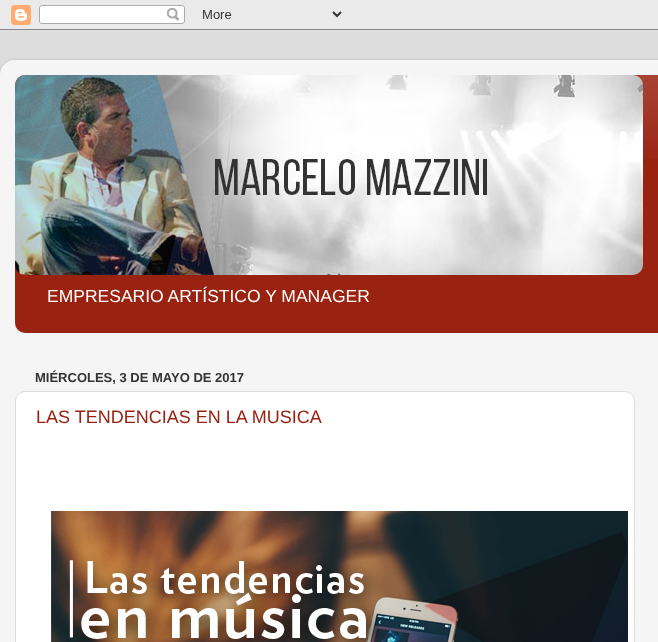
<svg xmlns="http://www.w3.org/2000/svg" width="658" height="642">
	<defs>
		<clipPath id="clip1"><path d="M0 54H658V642H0ZM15 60H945C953.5 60 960 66.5 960 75V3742C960 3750.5 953.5 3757 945 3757H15C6.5 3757 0 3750.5 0 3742V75C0 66.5 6.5 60 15 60Z" clip-rule="evenodd" /></clipPath>
	</defs>
	<rect width="100%" height="100%" fill="#DDDDDD" />
	<image x="0" y="0" width="658" height="30" href="assets/img1.png" />
	<g clip-path="url(#clip1)">
		<rect x="0" y="60" width="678" height="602" rx="15" fill="#000000" fill-opacity="0.15" filter="blur(1.5px)" />
	</g>
	<image x="0" y="60" width="658" height="582" href="assets/img2.png" />
	<rect x="15" y="75" width="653" height="258" rx="10" fill="#992211" />
	<image x="15" y="75" width="643" height="84" href="assets/img3.png" />
	<image x="15" y="75" width="628" height="200" href="assets/img4.png" />
	<text x="47" y="302" font-family="Liberation Sans" font-size="17.5" fill="#FFFFFF">EMPRESARIO ARTÍSTICO Y MANAGER</text>
	<text x="35" y="382" font-family="Liberation Sans" font-size="13" font-weight="700" fill="#333333">MIÉRCOLES, 3 DE MAYO DE 2017</text>
	<rect x="15.5" y="391.5" width="619" height="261" rx="9.5" fill="#FFFFFF" stroke="#DDDDDD" />
	<text x="36" y="423" font-family="Liberation Sans" font-size="18" fill="#992211">LAS TENDENCIAS EN LA MUSICA</text>
	<image x="51" y="511" width="577" height="131" href="assets/img5.png" />
</svg>
